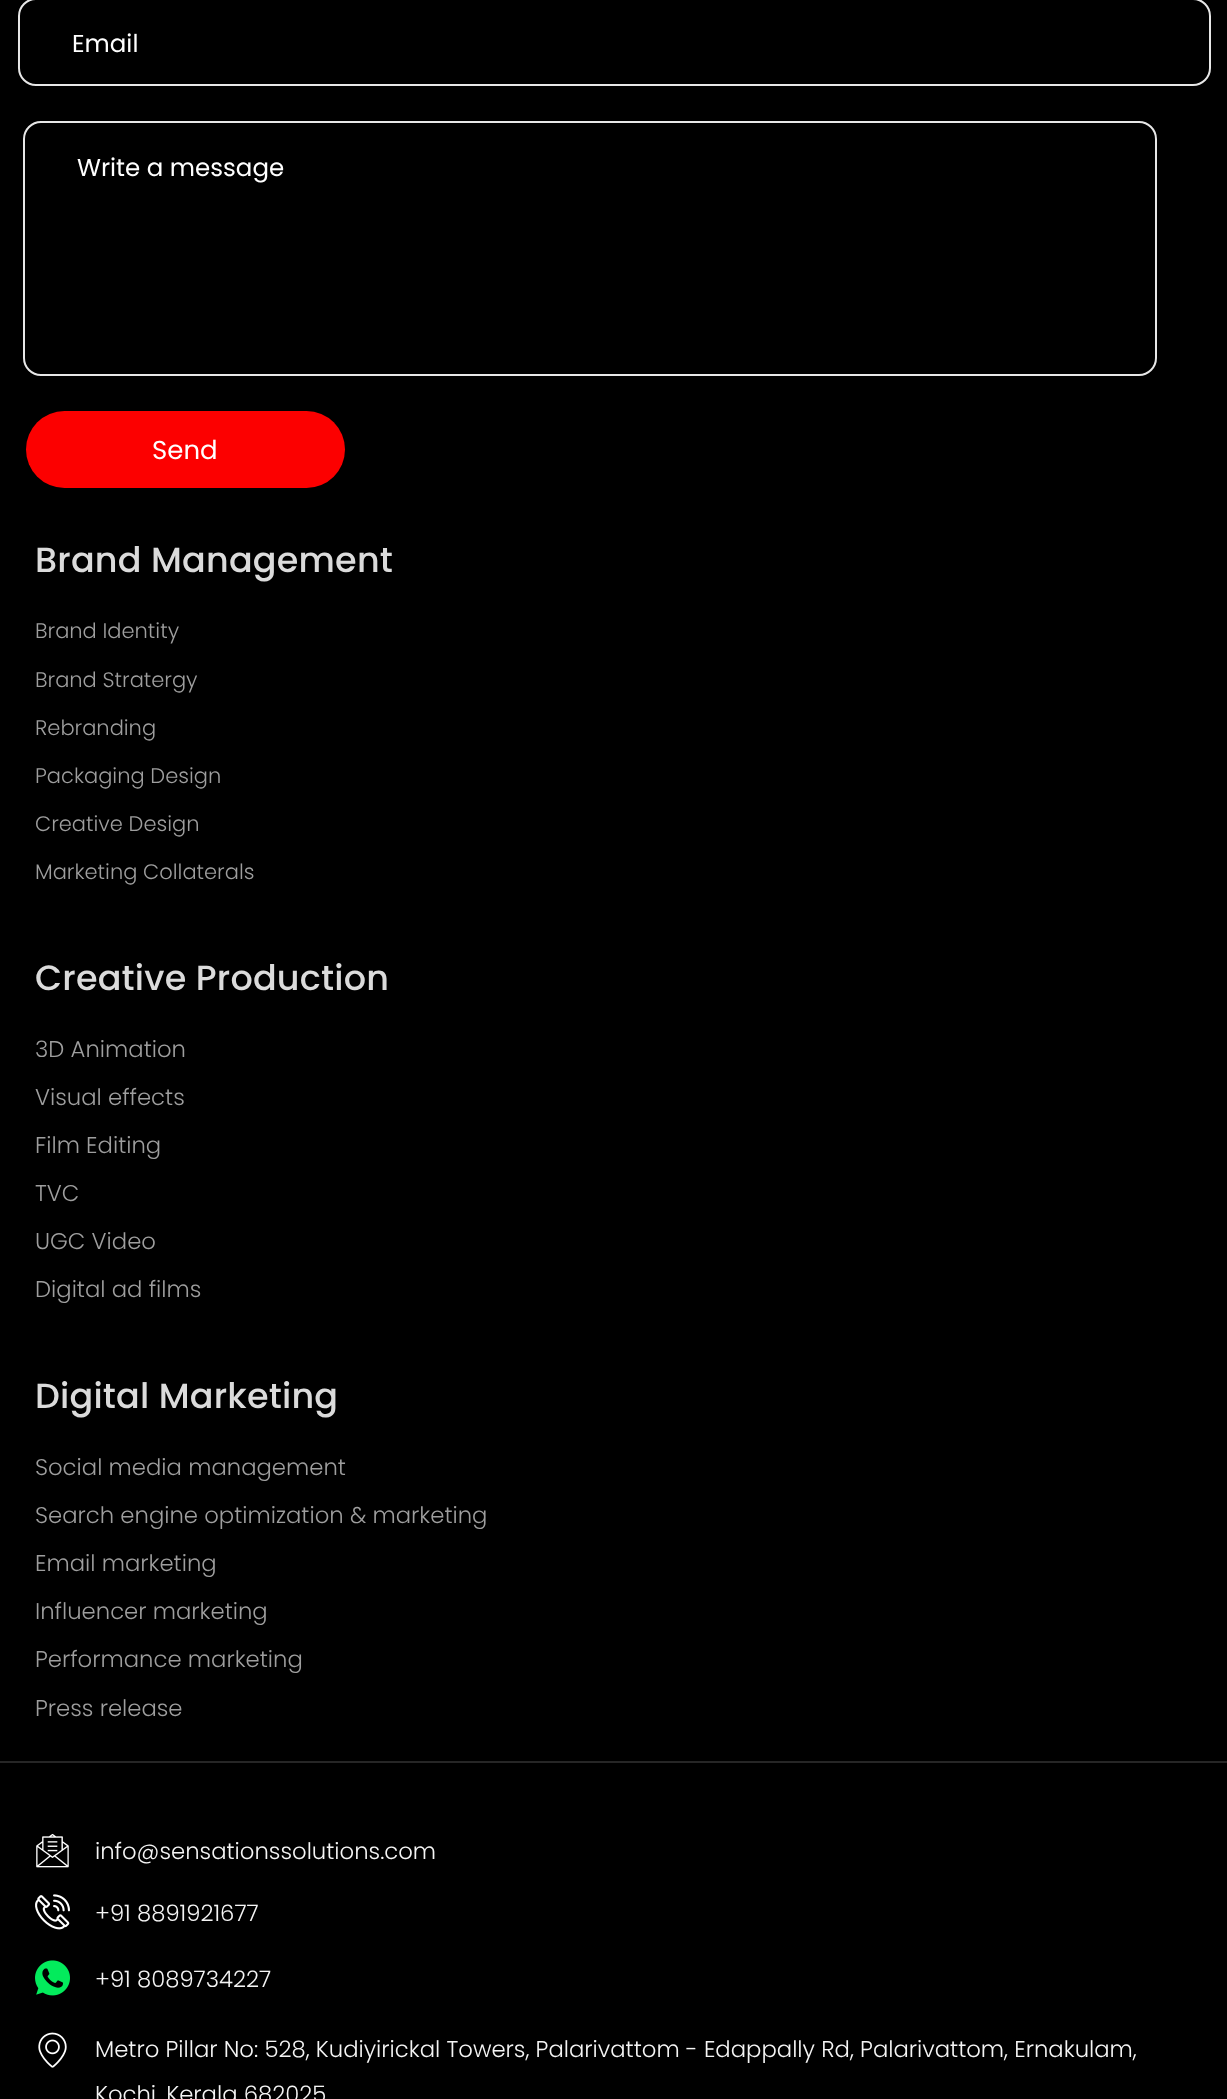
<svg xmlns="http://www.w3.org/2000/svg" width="1227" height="2099">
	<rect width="100%" height="100%" fill="#000000" />
	<rect x="19" y="-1" width="1191" height="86" rx="17" fill="none" stroke="#E7E7E7" stroke-width="2" />
	<text x="72" y="52" font-family="Poppins" font-size="24.5" fill="#FFFFFF">Email</text>
	<rect x="24" y="122" width="1132" height="253" rx="17" fill="none" stroke="#E7E7E7" stroke-width="2" />
	<text x="77" y="176" font-family="Poppins" font-size="24.5" fill="#FFFFFF">Write a message</text>
	<rect x="26" y="411" width="319" height="77" rx="38.5" fill="#FC0000" />
	<text x="152" y="459" font-family="Poppins" font-size="26" fill="#FFFFFF">Send</text>
	<rect x="0" y="1761" width="1227" height="2" fill="#262626" />
	<text x="35" y="572" font-family="Poppins" font-size="35" font-weight="500" letter-spacing="0.2" fill="#DBDBDB">Brand Management</text>
	<g font-family="Poppins" font-size="21" font-weight="300" fill="#9E9E9E">
		<text x="35" y="638">Brand Identity</text>
		<text x="35" y="687">Brand Stratergy</text>
		<text x="35" y="735">Rebranding</text>
		<text x="35" y="783">Packaging Design</text>
		<text x="35" y="831">Creative Design</text>
		<text x="35" y="879">Marketing Collaterals</text>
	</g>
	<text x="35" y="990" font-family="Poppins" font-size="35" font-weight="500" letter-spacing="0.2" fill="#DBDBDB">Creative Production</text>
	<g font-family="Poppins" font-size="22.75" font-weight="300" fill="#9E9E9E">
		<text x="35" y="1057">3D Animation</text>
		<text x="35" y="1105">Visual effects</text>
		<text x="35" y="1153">Film Editing</text>
		<text x="35" y="1201">TVC</text>
		<text x="35" y="1249">UGC Video</text>
		<text x="35" y="1297">Digital ad films</text>
	</g>
	<text x="35" y="1408" font-family="Poppins" font-size="35" font-weight="500" letter-spacing="0.2" fill="#DBDBDB">Digital Marketing</text>
	<g font-family="Poppins" font-size="22.75" font-weight="300" fill="#9E9E9E">
		<text x="35" y="1475">Social media management</text>
		<text x="35" y="1523">Search engine optimization &amp; marketing</text>
		<text x="35" y="1571">Email marketing</text>
		<text x="35" y="1619">Influencer marketing</text>
		<text x="35" y="1667">Performance marketing</text>
		<text x="35" y="1716">Press release</text>
	</g>
	<image x="36" y="1833" width="33" height="35" href="assets/img1.png" />
	<text x="95" y="1859" font-family="Poppins" font-size="22.75" font-weight="300" fill="#F5F5F5">info@sensationssolutions.com</text>
	<image x="35" y="1894" width="35" height="36" href="assets/img2.png" />
	<text x="95" y="1921" font-family="Poppins" font-size="22.75" font-weight="300" fill="#F5F5F5">+91 8891921677</text>
	<image x="35" y="1960" width="35" height="36" href="assets/img3.png" />
	<text x="95" y="1987" font-family="Poppins" font-size="22.75" font-weight="300" fill="#F5F5F5">+91 8089734227</text>
	<image x="38" y="2032" width="29" height="36" href="assets/img4.png" />
	<g font-family="Poppins" font-size="22.75" font-weight="300" fill="#F5F5F5">
		<text x="95" y="2057">Metro Pillar No: 528, Kudiyirickal Towers, Palarivattom - Edappally Rd, Palarivattom, Ernakulam,</text>
		<text x="95" y="2102">Kochi, Kerala 682025</text>
	</g>
</svg>
